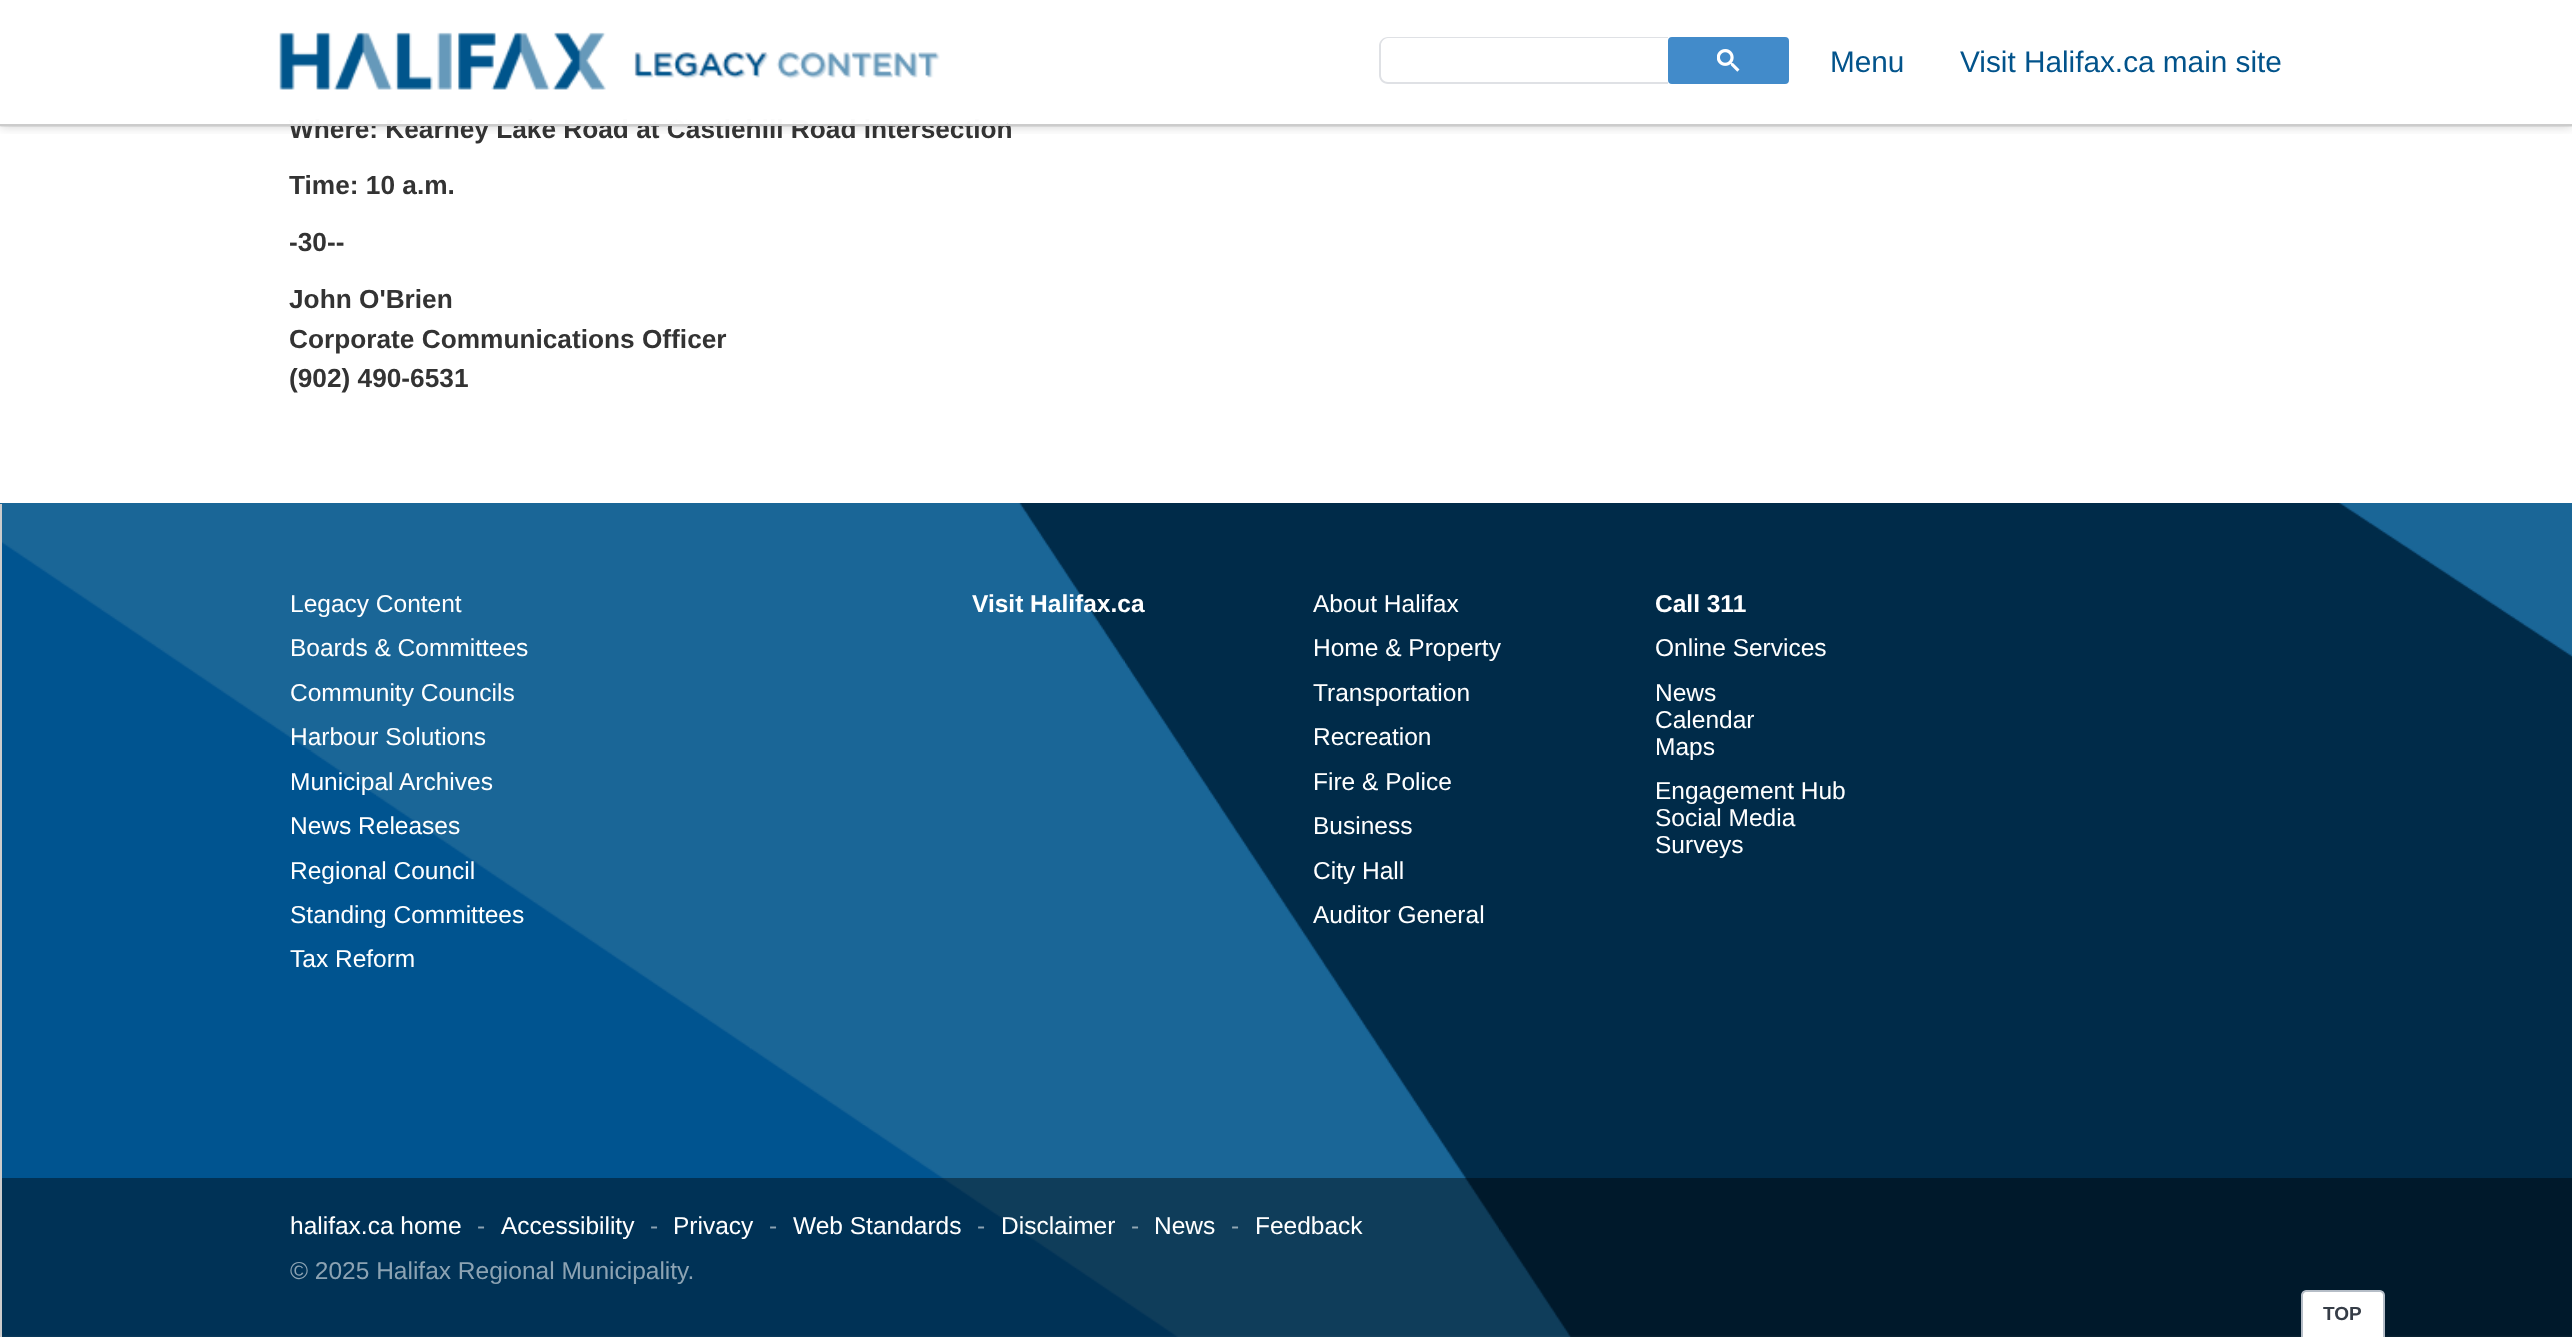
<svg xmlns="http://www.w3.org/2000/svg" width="2572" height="1337">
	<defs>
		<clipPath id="clip1"><rect x="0" y="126" width="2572" height="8" /></clipPath>
		<clipPath id="clip2"><rect x="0" y="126" width="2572" height="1" /></clipPath>
		<clipPath id="clip3"><path d="M1388 39H1668V82H1388C1384 82 1381 79 1381 75V46C1381 42 1384 39 1388 39Z" /></clipPath>
	</defs>
	<rect width="100%" height="100%" fill="#FFFFFF" />
	<g clip-path="url(#clip1)">
		<rect x="0" y="0" width="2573" height="126" fill="#000000" fill-opacity="0.2" filter="blur(6px)" />
	</g>
	<g clip-path="url(#clip2)">
		<rect x="0" y="0" width="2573" height="126" fill="#000000" fill-opacity="0.2" filter="blur(1px)" />
	</g>
	<text x="289" y="138" font-family="Liberation Sans" font-size="26.25" font-weight="700" fill="#333333">Where: Kearney Lake Road at Castlehill Road intersection</text>
	<rect x="288" y="119" width="719" height="5" fill="#FFFFFF" fill-opacity="0.98" />
	<rect x="0" y="124" width="2572" height="2" fill="#CCCCCC" />
	<image x="279" y="32" width="661" height="58" href="assets/img1.png" />
	<path d="M1388 37H1668V84H1388C1383 84 1379 80 1379 75V46C1379 41 1383 37 1388 37ZM1388 38H1668V82H1388C1384 82 1381 79 1381 75V46C1381 42 1384 38 1388 38Z" fill="#DFE1E5" fill-rule="evenodd" />
	<g clip-path="url(#clip3)">
		<rect x="1381" y="40" width="280" height="35" fill="#FFFFFF" />
	</g>
	<rect x="1669" y="38" width="119" height="45" rx="3" fill="#428BCA" stroke="#428BCA" stroke-width="2" />
	<image x="1717" y="49" width="23" height="23" href="assets/img2.png" />
	<g font-family="Liberation Sans" font-size="29.75" fill="#02538B">
		<text x="1830" y="72">Menu</text>
		<text x="1960" y="72">Visit Halifax.ca main site</text>
	</g>
	<g font-family="Liberation Sans" font-size="26.25" font-weight="700" fill="#333333">
		<text x="289" y="194">Time: 10 a.m.</text>
		<text x="289" y="251">-30--</text>
		<text x="289" y="308">John O'Brien</text>
		<text x="289" y="348">Corporate Communications Officer</text>
		<text x="289" y="387">(902) 490-6531</text>
	</g>
	<image x="0" y="503" width="2572" height="834" href="assets/img3.png" />
	<rect x="0" y="504" width="2" height="833" fill="#CCCCCC" />
	<g font-family="Liberation Sans" font-size="24.5" fill="#FFFFFF">
		<text x="290" y="612">Legacy Content</text>
		<text x="290" y="656">Boards &amp; Committees</text>
		<text x="290" y="701">Community Councils</text>
		<text x="290" y="745">Harbour Solutions</text>
		<text x="290" y="790">Municipal Archives</text>
		<text x="290" y="834">News Releases</text>
		<text x="290" y="879">Regional Council</text>
		<text x="290" y="923">Standing Committees</text>
		<text x="290" y="967">Tax Reform</text>
	</g>
	<text x="972" y="612" font-family="Liberation Sans" font-size="24.5" font-weight="700" fill="#FFFFFF">Visit Halifax.ca</text>
	<g font-family="Liberation Sans" font-size="24.5" fill="#FFFFFF">
		<text x="1313" y="612">About Halifax</text>
		<text x="1313" y="656">Home &amp; Property</text>
		<text x="1313" y="701">Transportation</text>
		<text x="1313" y="745">Recreation</text>
		<text x="1313" y="790">Fire &amp; Police</text>
		<text x="1313" y="834">Business</text>
		<text x="1313" y="879">City Hall</text>
		<text x="1313" y="923">Auditor General</text>
	</g>
	<text x="1655" y="612" font-family="Liberation Sans" font-size="24.5" font-weight="700" fill="#FFFFFF">Call 311</text>
	<g font-family="Liberation Sans" font-size="24.5" fill="#FFFFFF">
		<text x="1655" y="656">Online Services</text>
		<text x="1655" y="701">News</text>
		<text x="1655" y="728">Calendar</text>
		<text x="1655" y="755">Maps</text>
		<text x="1655" y="799">Engagement Hub</text>
		<text x="1655" y="826">Social Media</text>
		<text x="1655" y="853">Surveys</text>
	</g>
	<rect x="2" y="1178" width="2570" height="159" fill="#000000" fill-opacity="0.4" />
	<text x="290" y="1234" font-family="Liberation Sans" font-size="24.5" fill="#FFFFFF">halifax.ca home</text>
	<text x="477" y="1234" font-family="Liberation Sans" font-size="24.5" fill="#8CA3B3">-</text>
	<text x="501" y="1234" font-family="Liberation Sans" font-size="24.5" fill="#FFFFFF">Accessibility</text>
	<text x="650" y="1234" font-family="Liberation Sans" font-size="24.5" fill="#8CA3B3">-</text>
	<text x="673" y="1234" font-family="Liberation Sans" font-size="24.5" fill="#FFFFFF">Privacy</text>
	<text x="769" y="1234" font-family="Liberation Sans" font-size="24.5" fill="#8CA3B3">-</text>
	<text x="793" y="1234" font-family="Liberation Sans" font-size="24.5" fill="#FFFFFF">Web Standards</text>
	<text x="977" y="1234" font-family="Liberation Sans" font-size="24.5" fill="#8CA3B3">-</text>
	<text x="1001" y="1234" font-family="Liberation Sans" font-size="24.5" fill="#FFFFFF">Disclaimer</text>
	<text x="1131" y="1234" font-family="Liberation Sans" font-size="24.5" fill="#93A8B5">-</text>
	<text x="1154" y="1234" font-family="Liberation Sans" font-size="24.5" fill="#FFFFFF">News</text>
	<text x="1231" y="1234" font-family="Liberation Sans" font-size="24.5" fill="#93A8B5">-</text>
	<text x="1255" y="1234" font-family="Liberation Sans" font-size="24.5" fill="#FFFFFF">Feedback</text>
	<text x="290" y="1279" font-family="Liberation Sans" font-size="24.5" fill="#8CA3B3">© 2025 Halifax Regional Municipality.</text>
	<path d="M2306 1291H2380C2382 1291 2384 1293 2384 1295V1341H2302V1295C2302 1293 2304 1291 2306 1291Z" fill="#FFFFFF" stroke="#B5BDC7" stroke-width="2" />
	<text x="2323" y="1320" font-family="Liberation Sans" font-size="19" font-weight="700" fill="#363D47">TOP</text>
</svg>
